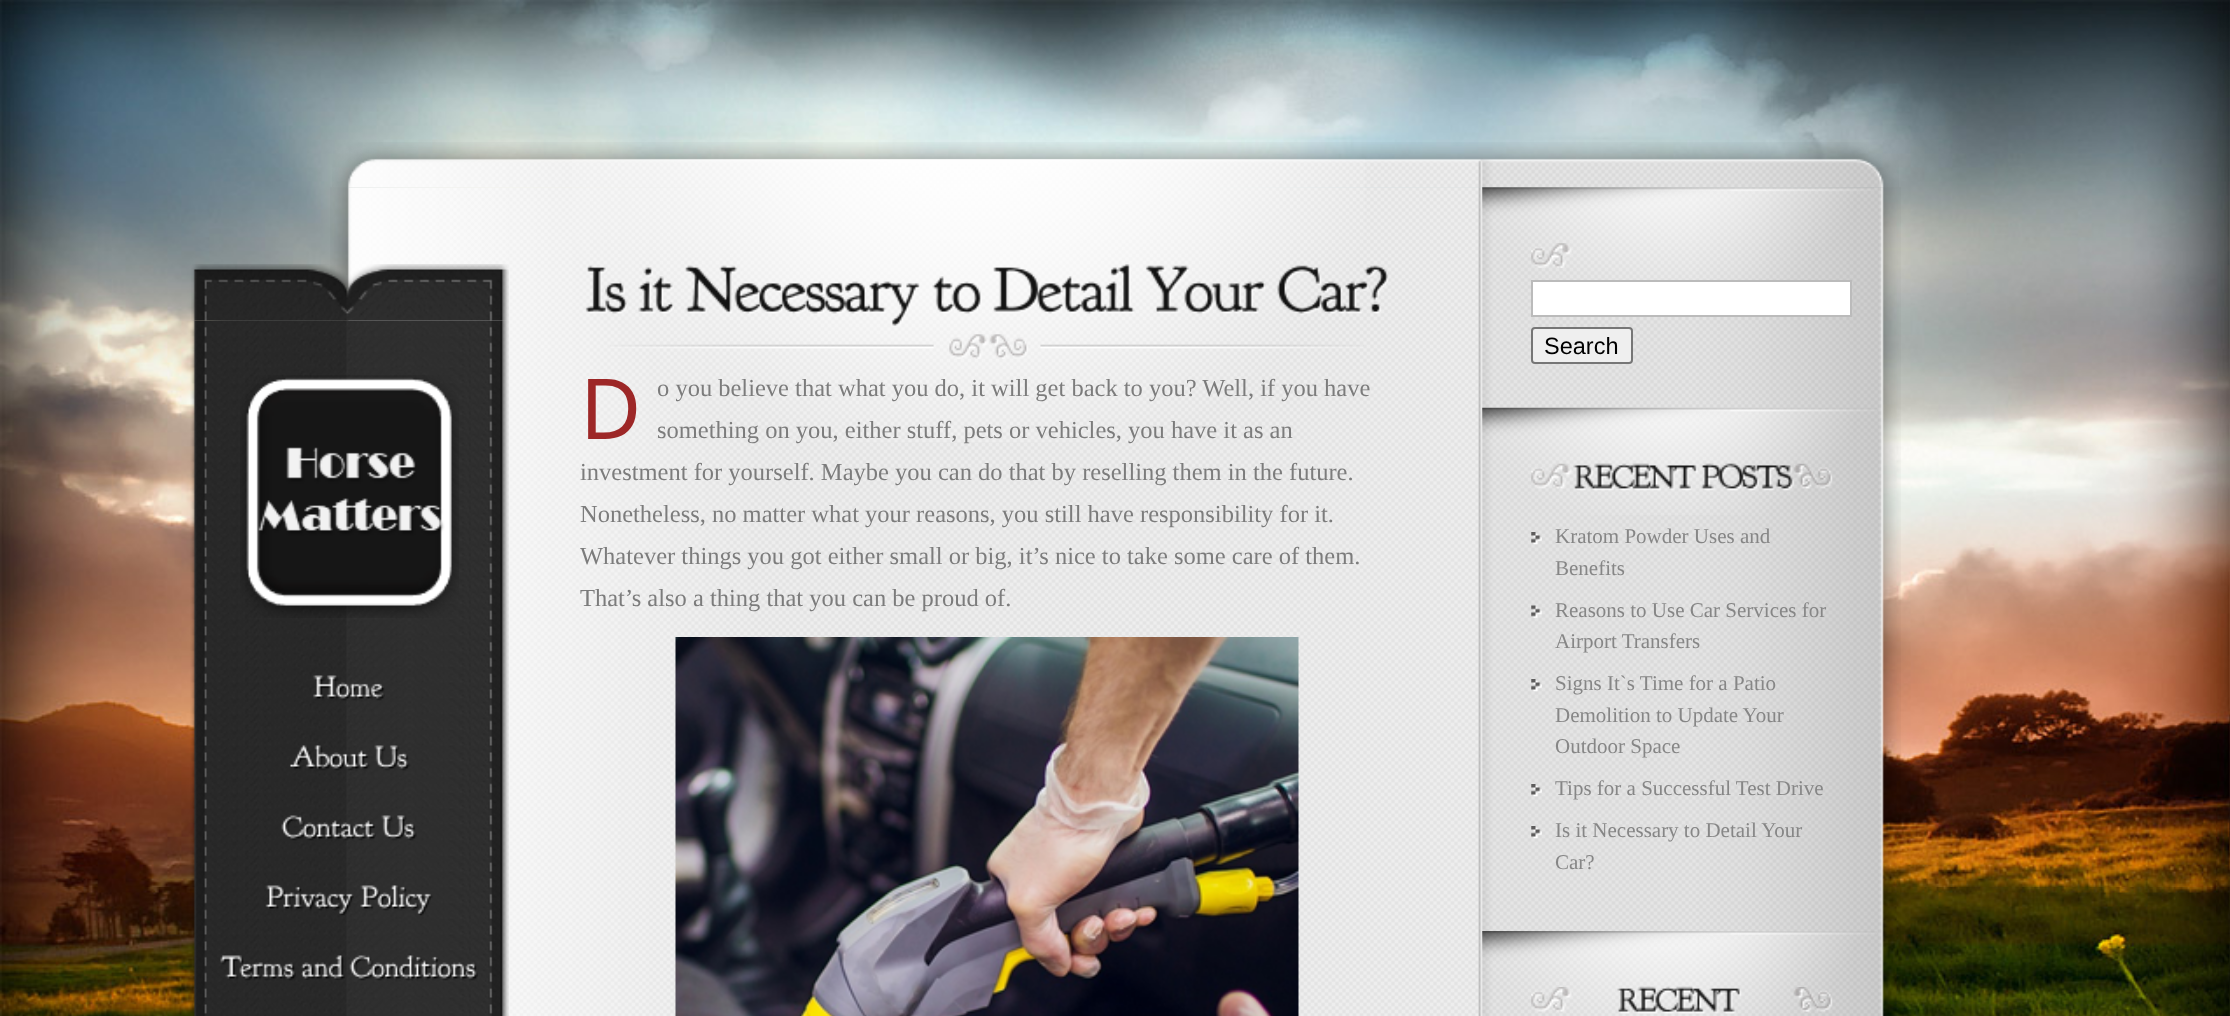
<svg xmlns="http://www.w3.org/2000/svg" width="2230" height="1016">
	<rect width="100%" height="100%" fill="#FFFFFF" />
	<image x="0" y="0" width="2230" height="1016" href="assets/img1.png" />
	<image x="332" y="142" width="1567" height="46" href="assets/img2.png" />
	<image x="330" y="187" width="1571" height="829" href="assets/img16.png" />
	<image x="191" y="264" width="318" height="57" href="assets/img3.png" />
	<image x="190" y="320" width="319" height="696" href="assets/img4.png" />
	<image x="240" y="375" width="219" height="243" href="assets/img5.png" />
	<image x="313" y="675" width="72" height="26" href="assets/img6.png" />
	<image x="290" y="745" width="80" height="26" href="assets/img7.png" />
	<image x="374" y="745" width="36" height="26" href="assets/img8.png" />
	<image x="281" y="815" width="95" height="26" href="assets/img9.png" />
	<image x="381" y="815" width="36" height="26" href="assets/img10.png" />
	<image x="265" y="885" width="89" height="31" href="assets/img11.png" />
	<image x="360" y="885" width="73" height="31" href="assets/img12.png" />
	<image x="220" y="955" width="76" height="26" href="assets/img13.png" />
	<image x="301" y="955" width="44" height="25" href="assets/img14.png" />
	<image x="349" y="955" width="129" height="26" href="assets/img15.png" />
	<image x="572" y="159" width="793" height="283" href="assets/img17.png" />
	<image x="610" y="334" width="754" height="25" href="assets/img18.png" />
	<image x="585" y="265" width="42" height="49" href="assets/img19.png" />
	<image x="638" y="267" width="36" height="47" href="assets/img20.png" />
	<image x="685" y="265" width="235" height="62" href="assets/img21.png" />
	<image x="932" y="276" width="50" height="38" href="assets/img22.png" />
	<image x="993" y="264" width="142" height="50" href="assets/img23.png" />
	<image x="1145" y="265" width="121" height="49" href="assets/img24.png" />
	<image x="1277" y="265" width="112" height="50" href="assets/img25.png" />
	<text x="580" y="439" font-family="Noto Sans" font-size="84" fill="#9D2727">D</text>
	<g font-family="Liberation Serif" font-size="24.5" fill="#7C7C7C">
		<text x="657" y="396">o you believe that what you do, it will get back to you? Well, if you have</text>
		<text x="657" y="438">something on you, either stuff, pets or vehicles, you have it as an</text>
		<text x="580" y="480">investment for yourself. Maybe you can do that by reselling them in the future.</text>
		<text x="580" y="522">Nonetheless, no matter what your reasons, you still have responsibility for it.</text>
		<text x="580" y="564">Whatever things you got either small or big, it’s nice to take some care of them.</text>
		<text x="580" y="606">That’s also a thing that you can be proud of.</text>
	</g>
	<image x="675" y="637" width="624" height="379" href="assets/img26.png" />
	<image x="1482" y="187" width="392" height="93" href="assets/img27.png" />
	<image x="1531" y="243" width="41" height="25" href="assets/img28.png" />
	<rect x="1532" y="281" width="319" height="35" fill="#FFFFFF" stroke="#BBBBBB" stroke-width="2" />
	<rect x="1532" y="328" width="100" height="35" rx="3" fill="#EFEFEF" stroke="#767676" stroke-width="2" />
	<text x="1544" y="354" font-family="Liberation Sans" font-size="23.5" fill="#000000">Search</text>
	<image x="1482" y="407" width="395" height="108" href="assets/img29.png" />
	<image x="1531" y="463" width="41" height="26" href="assets/img30.png" />
	<image x="1793" y="463" width="40" height="26" href="assets/img31.png" />
	<image x="1573" y="463" width="125" height="28" href="assets/img32.png" />
	<image x="1701" y="463" width="94" height="28" href="assets/img33.png" />
	<image x="1531" y="532" width="11" height="13" href="assets/img34.png" />
	<g font-family="Liberation Serif" font-size="21" fill="#868686">
		<text x="1555" y="543">Kratom Powder Uses and</text>
		<text x="1555" y="575">Benefits</text>
	</g>
	<image x="1531" y="605" width="11" height="13" href="assets/img35.png" />
	<g font-family="Liberation Serif" font-size="21" fill="#868686">
		<text x="1555" y="617">Reasons to Use Car Services for</text>
		<text x="1555" y="648">Airport Transfers</text>
	</g>
	<image x="1531" y="679" width="11" height="13" href="assets/img34.png" />
	<g font-family="Liberation Serif" font-size="21" fill="#868686">
		<text x="1555" y="690">Signs It`s Time for a Patio</text>
		<text x="1555" y="722">Demolition to Update Your</text>
		<text x="1555" y="753">Outdoor Space</text>
	</g>
	<image x="1531" y="784" width="11" height="13" href="assets/img34.png" />
	<text x="1555" y="795" font-family="Liberation Serif" font-size="21" fill="#868686">Tips for a Successful Test Drive</text>
	<image x="1531" y="826" width="11" height="13" href="assets/img34.png" />
	<g font-family="Liberation Serif" font-size="21" fill="#868686">
		<text x="1555" y="837">Is it Necessary to Detail Your</text>
		<text x="1555" y="869">Car?</text>
	</g>
	<image x="1482" y="931" width="395" height="85" href="assets/img36.png" />
	<image x="1531" y="987" width="41" height="25" href="assets/img37.png" />
	<image x="1793" y="987" width="40" height="25" href="assets/img38.png" />
	<image x="1617" y="986" width="125" height="28" href="assets/img39.png" />
</svg>
